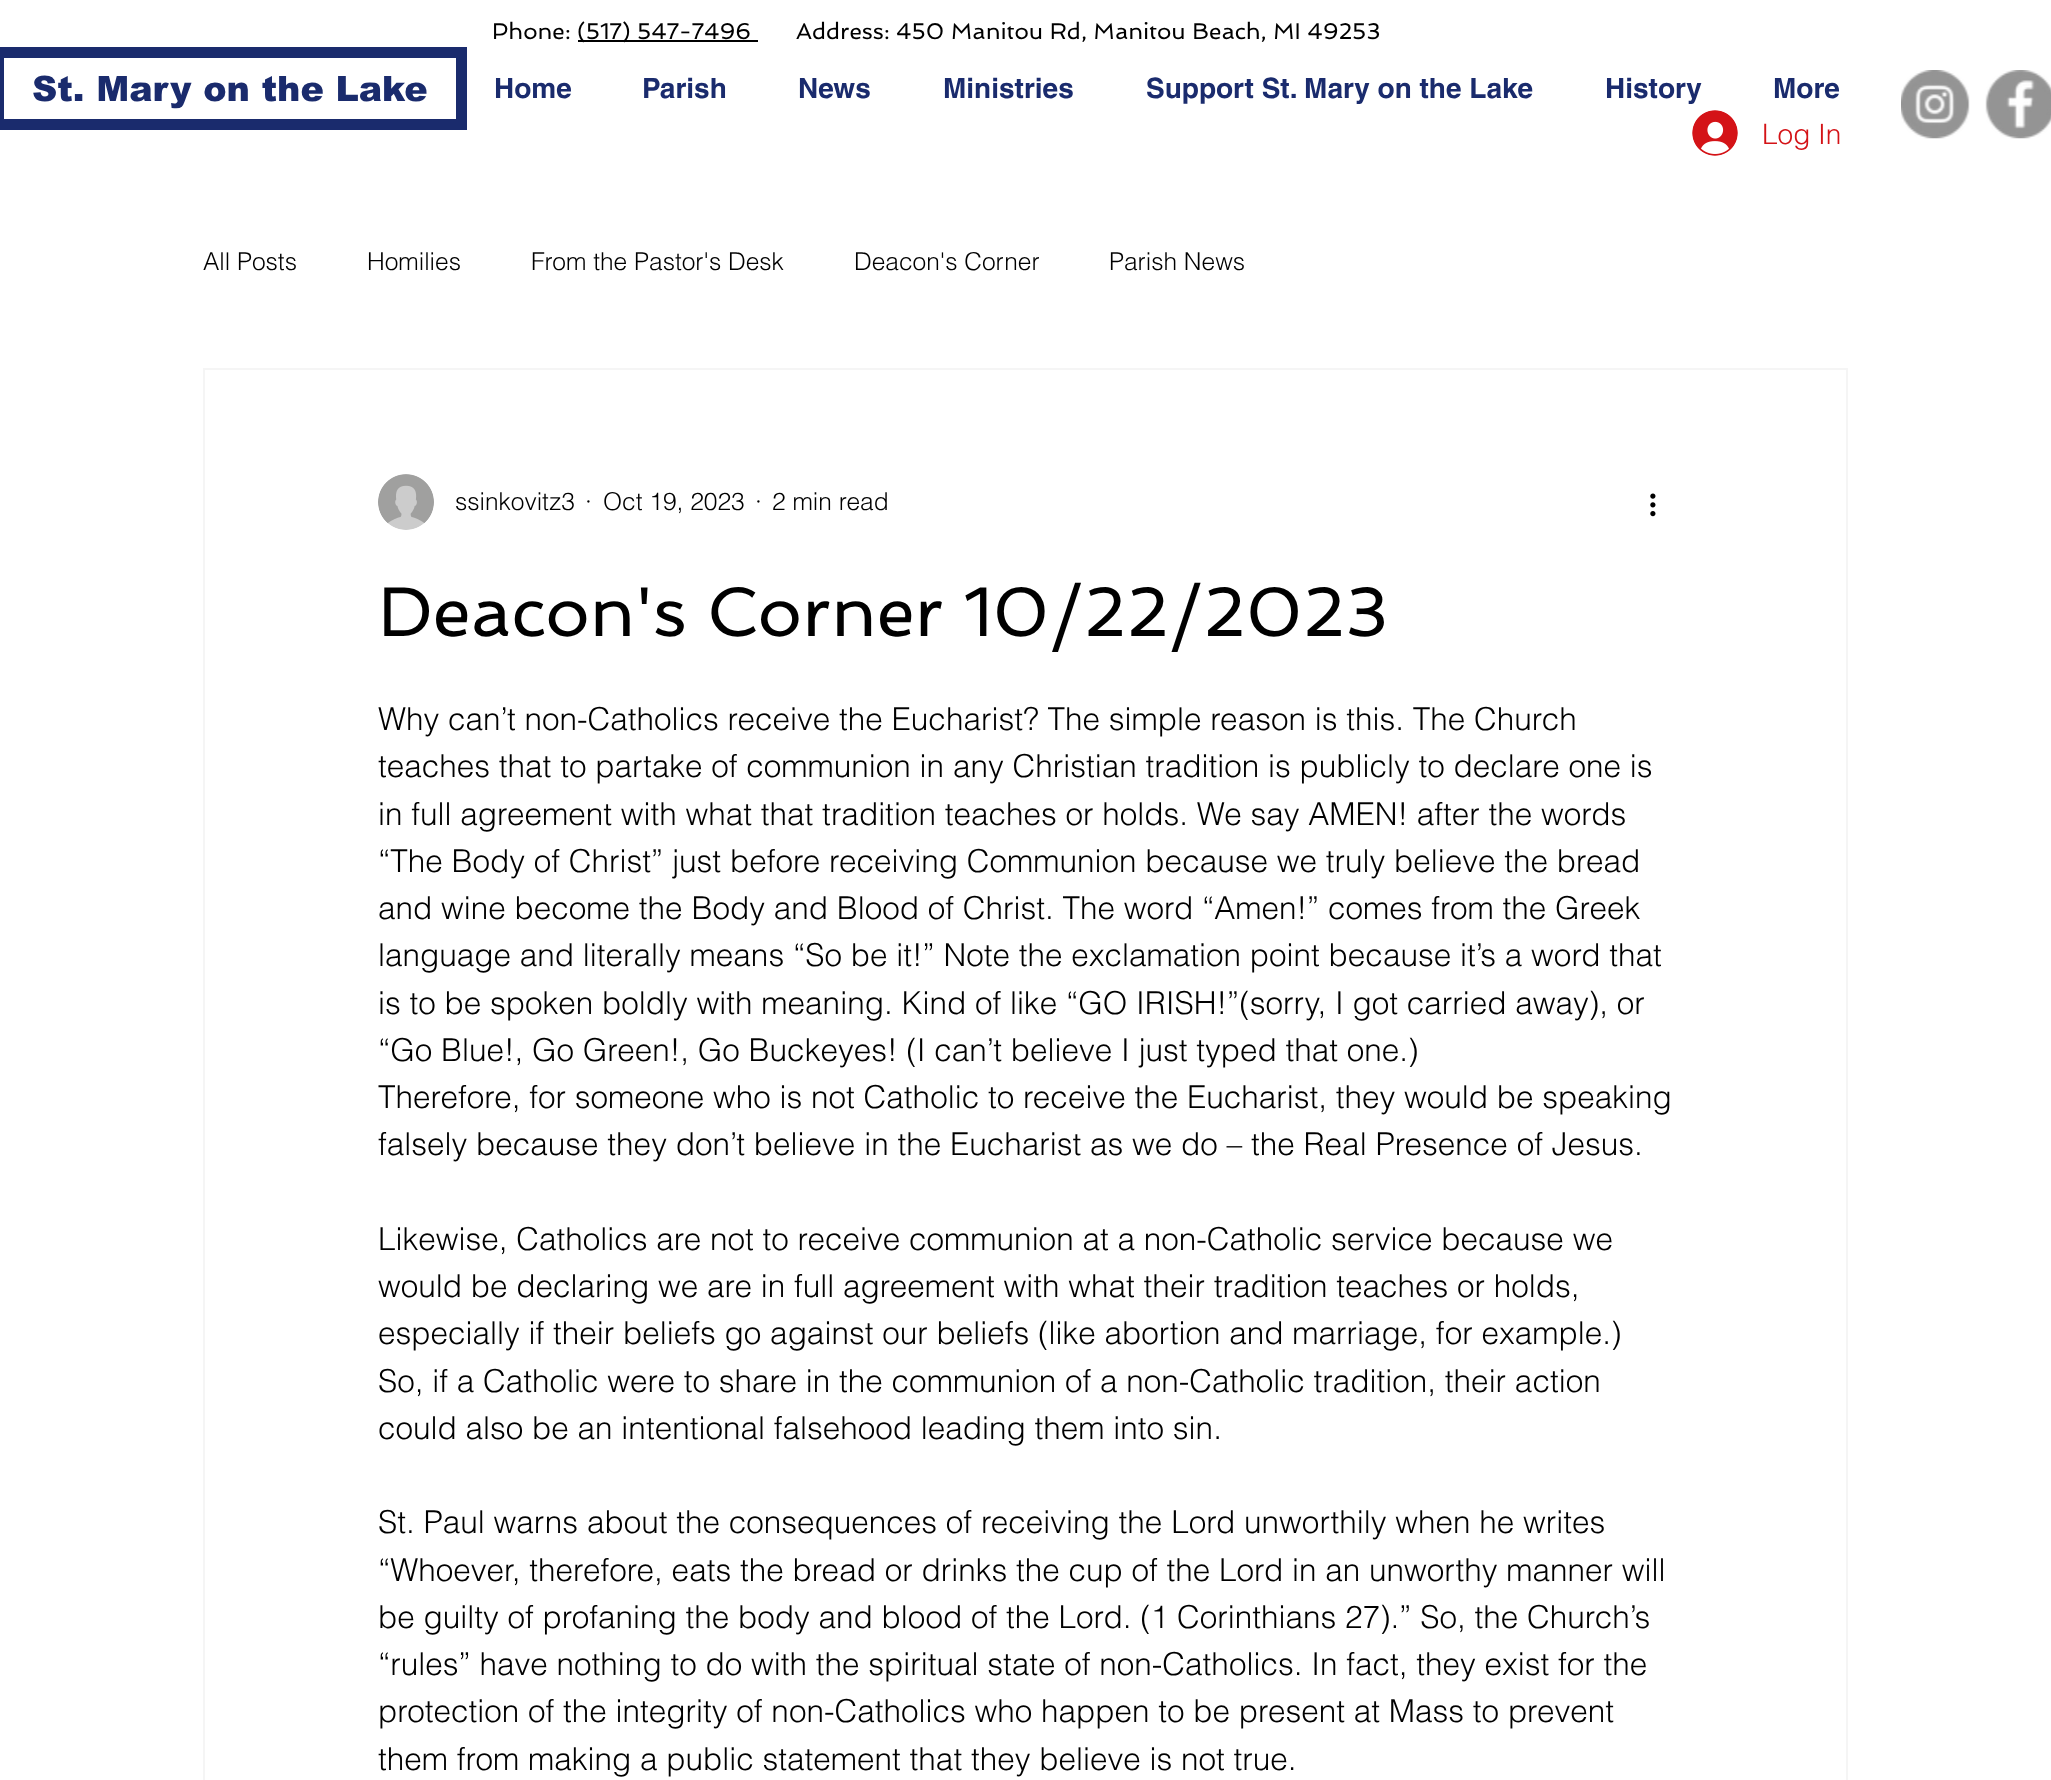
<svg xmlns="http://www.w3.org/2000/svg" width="2051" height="1780">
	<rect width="100%" height="100%" fill="#FFFFFF" />
	<text x="492" y="39" font-family="Spinnaker" font-size="22.75" fill="#000000">Phone:</text>
	<rect x="578" y="40" width="180" height="2" fill="#000000" />
	<g font-family="Spinnaker" font-size="22.75" fill="#000000">
		<text x="577" y="39">(517) 547-7496</text>
		<text x="796" y="39">Address: 450 Manitou Rd, Manitou Beach, MI 49253</text>
	</g>
	<rect x="-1.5" y="52.5" width="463" height="72" fill="none" stroke="#1A2B6D" stroke-width="11" />
	<text x="32" y="101" font-family="arial" font-size="35" font-weight="900" fill="#1A2B6D">St. Mary on the Lake</text>
	<g font-family="helvetica" font-size="28" font-weight="700" fill="#1A2B6D">
		<text x="494" y="98">Home</text>
		<text x="642" y="98">Parish</text>
		<text x="798" y="98">News</text>
		<text x="943" y="98">Ministries</text>
		<text x="1146" y="98">Support St. Mary on the Lake</text>
		<text x="1605" y="98">History</text>
		<text x="1773" y="98">More</text>
	</g>
	<image x="1901" y="70" width="69" height="69" href="assets/img1.png" />
	<image x="1985" y="70" width="66" height="69" href="assets/img2.png" />
	<image x="1692" y="110" width="46" height="46" href="assets/img3.png" />
	<text x="1762" y="144" font-family="helvetica" font-size="28" font-weight="300" fill="#D41317">Log In</text>
	<g font-family="helvetica" font-size="24.5" font-weight="300" fill="#000000">
		<text x="203" y="270">All Posts</text>
		<text x="367" y="270">Homilies</text>
		<text x="531" y="270">From the Pastor's Desk</text>
		<text x="854" y="270">Deacon's Corner</text>
		<text x="1109" y="270">Parish News</text>
	</g>
	<rect x="204" y="369" width="1643" height="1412" fill="none" stroke="#F5F5F5" stroke-width="2" />
	<image x="378" y="474" width="56" height="56" href="assets/img4.png" />
	<g font-family="helvetica" font-size="24.5" font-weight="300" fill="#000000">
		<text x="455" y="510">ssinkovitz3</text>
		<text x="585" y="510">·</text>
		<text x="603" y="510">Oct 19, 2023</text>
		<text x="755" y="510">·</text>
		<text x="772" y="510">2 min read</text>
	</g>
	<image x="1650" y="493" width="6" height="24" href="assets/img5.png" />
	<text x="378" y="636" font-family="Spinnaker" font-size="70" fill="#000000">Deacon's Corner 10/22/2023</text>
	<g font-family="helvetica" font-size="31.5" font-weight="300" fill="#000000">
		<text x="378" y="730">Why can’t non-Catholics receive the Eucharist? The simple reason is this. The Church</text>
		<text x="378" y="777">teaches that to partake of communion in any Christian tradition is publicly to declare one is</text>
		<text x="378" y="825">in full agreement with what that tradition teaches or holds. We say AMEN! after the words</text>
		<text x="378" y="872">“The Body of Christ” just before receiving Communion because we truly believe the bread</text>
		<text x="378" y="919">and wine become the Body and Blood of Christ. The word “Amen!” comes from the Greek</text>
		<text x="378" y="966">language and literally means “So be it!” Note the exclamation point because it’s a word that</text>
		<text x="378" y="1014">is to be spoken boldly with meaning. Kind of like “GO IRISH!”(sorry, I got carried away), or</text>
		<text x="378" y="1061">“Go Blue!, Go Green!, Go Buckeyes! (I can’t believe I just typed that one.)</text>
		<text x="378" y="1108">Therefore, for someone who is not Catholic to receive the Eucharist, they would be speaking</text>
		<text x="378" y="1155">falsely because they don’t believe in the Eucharist as we do – the Real Presence of Jesus.</text>
		<text x="378" y="1250">Likewise, Catholics are not to receive communion at a non-Catholic service because we</text>
		<text x="378" y="1297">would be declaring we are in full agreement with what their tradition teaches or holds,</text>
		<text x="378" y="1344">especially if their beliefs go against our beliefs (like abortion and marriage, for example.)</text>
		<text x="378" y="1392">So, if a Catholic were to share in the communion of a non-Catholic tradition, their action</text>
		<text x="378" y="1439">could also be an intentional falsehood leading them into sin.</text>
		<text x="378" y="1533">St. Paul warns about the consequences of receiving the Lord unworthily when he writes</text>
		<text x="378" y="1581">“Whoever, therefore, eats the bread or drinks the cup of the Lord in an unworthy manner will</text>
		<text x="378" y="1628">be guilty of profaning the body and blood of the Lord. (1 Corinthians 27).” So, the Church’s</text>
		<text x="378" y="1675">“rules” have nothing to do with the spiritual state of non-Catholics. In fact, they exist for the</text>
		<text x="378" y="1722">protection of the integrity of non-Catholics who happen to be present at Mass to prevent</text>
		<text x="378" y="1770">them from making a public statement that they believe is not true.</text>
	</g>
</svg>
